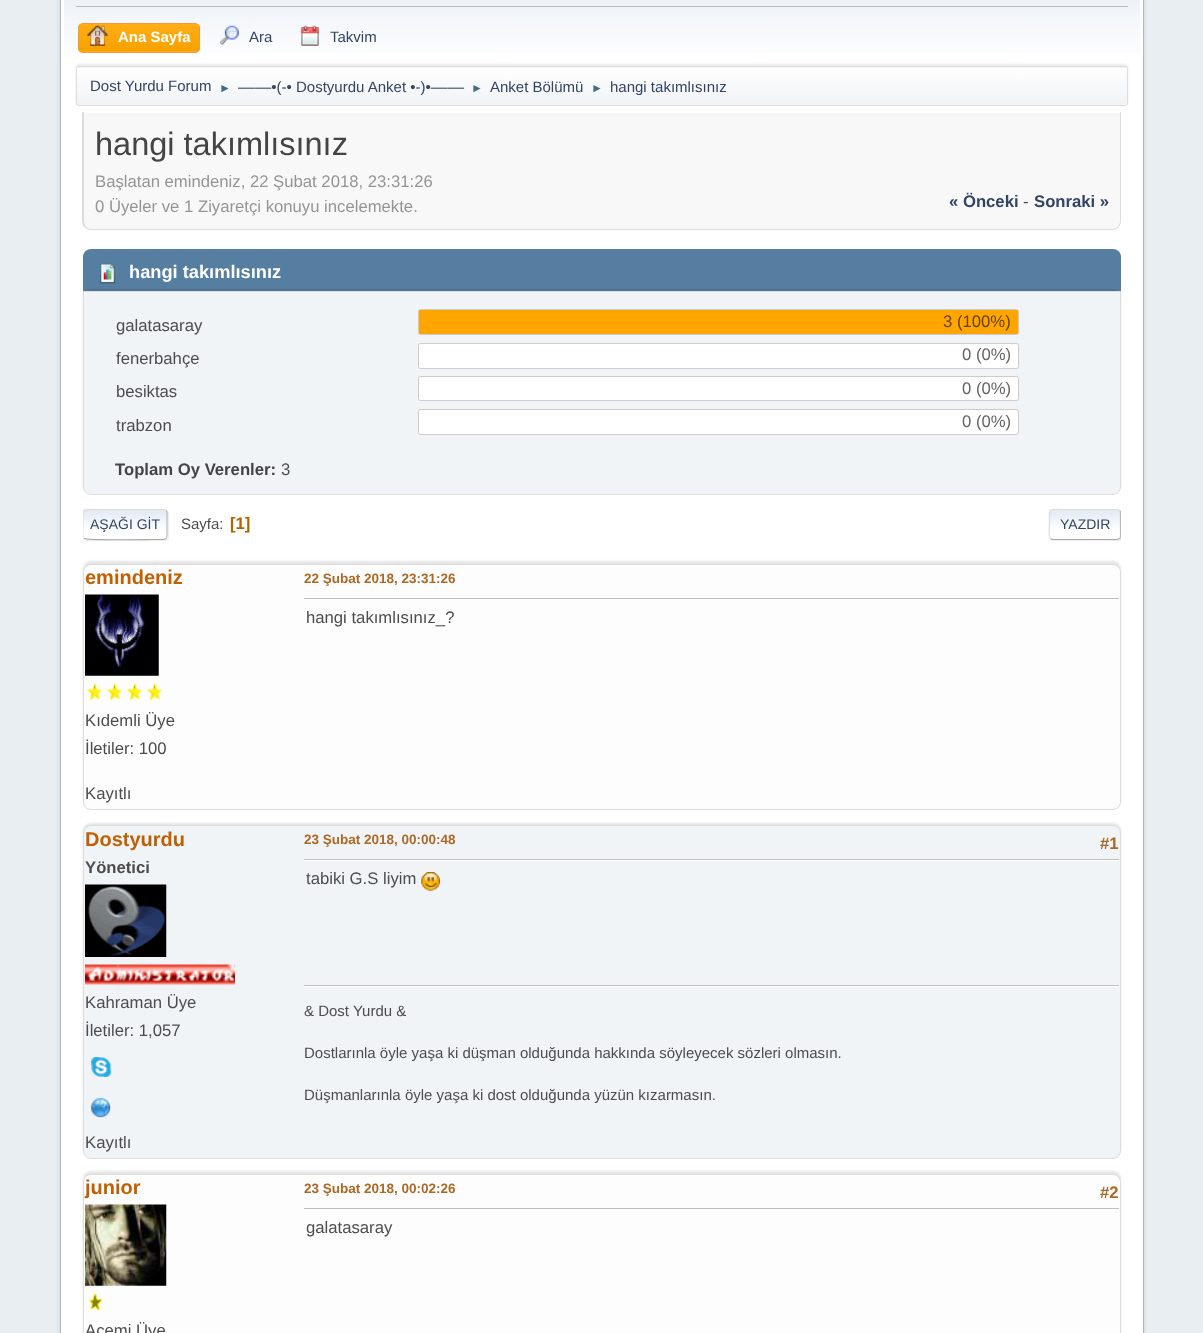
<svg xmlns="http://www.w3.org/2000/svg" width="1203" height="1333">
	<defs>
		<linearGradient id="g1" gradientUnits="userSpaceOnUse" x1="602" y1="-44" x2="602" y2="109"><stop offset="0" stop-color="#E2E9F3" /><stop offset="0.7" stop-color="#FFFFFF" /></linearGradient>
		<clipPath id="clip1"><rect x="78" y="23" width="122" height="30" rx="5" /></clipPath>
		<linearGradient id="g2" gradientUnits="userSpaceOnUse" x1="139" y1="24" x2="139" y2="51"><stop offset="0" stop-color="#FFAE14" /><stop offset="1" stop-color="#F5A100" /></linearGradient>
		<linearGradient id="g3" gradientUnits="userSpaceOnUse" x1="139" y1="51" x2="139" y2="79"><stop offset="0" stop-color="#FFAE14" /><stop offset="1" stop-color="#F5A100" /></linearGradient>
		<clipPath id="clip2"><rect x="76" y="66" width="1052" height="40" rx="2.5" /></clipPath>
		<linearGradient id="g4" gradientUnits="userSpaceOnUse" x1="602" y1="30" x2="602" y2="68"><stop offset="0" stop-color="#FFFFFF" /><stop offset="0.95" stop-color="#F1F3F5" /></linearGradient>
		<linearGradient id="g5" gradientUnits="userSpaceOnUse" x1="602" y1="67" x2="602" y2="105"><stop offset="0" stop-color="#FFFFFF" /><stop offset="0.95" stop-color="#F1F3F5" /></linearGradient>
		<clipPath id="clip3"><rect x="83" y="509" width="85" height="31" rx="4" /></clipPath>
		<linearGradient id="g6" gradientUnits="userSpaceOnUse" x1="125" y1="510" x2="125" y2="539"><stop offset="0" stop-color="#E2E9F3" /><stop offset="0.7" stop-color="#FFFFFF" /></linearGradient>
		<linearGradient id="g7" gradientUnits="userSpaceOnUse" x1="125" y1="539" x2="125" y2="568"><stop offset="0" stop-color="#E2E9F3" /><stop offset="0.7" stop-color="#FFFFFF" /></linearGradient>
		<clipPath id="clip4"><rect x="83" y="500" width="1038" height="49" /></clipPath>
		<clipPath id="clip5"><rect x="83" y="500" width="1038" height="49" /></clipPath>
		<clipPath id="clip6"><rect x="1049" y="509" width="72" height="31" rx="4" /></clipPath>
		<linearGradient id="g8" gradientUnits="userSpaceOnUse" x1="1085" y1="510" x2="1085" y2="539"><stop offset="0" stop-color="#E2E9F3" /><stop offset="0.7" stop-color="#FFFFFF" /></linearGradient>
	</defs>
	<rect width="100%" height="100%" fill="#E9EEF2" />
	<rect x="60" y="-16" width="1084" height="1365" rx="10" fill="#000000" fill-opacity="0.14" filter="blur(2px)" />
	<rect x="60.5" y="-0.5" width="1083" height="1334" fill="#FFFFFF" stroke="#B8B8B8" />
	<rect x="64" y="0" width="1076" height="54" fill="url(#g1)" />
	<rect x="76" y="6" width="1052" height="1" fill="#BBBBBB" />
	<g clip-path="url(#clip1)">
		<rect x="78" y="24" width="122" height="27" fill="url(#g2)" />
		<rect x="78" y="51" width="122" height="2" fill="url(#g3)" />
	</g>
	<rect x="78.5" y="23.5" width="121" height="29" rx="4.5" fill="none" stroke="#F49A3A" />
	<image x="87" y="25" width="21" height="21" href="assets/img1.png" />
	<text x="118" y="42" font-family="Liberation Sans" font-size="15" font-weight="700" fill="#FFFFFF">Ana Sayfa</text>
	<image x="219" y="25" width="20" height="20" href="assets/img2.png" />
	<text x="249" y="42" font-family="Liberation Sans" font-size="15" fill="#334466">Ara</text>
	<image x="301" y="25" width="18" height="21" href="assets/img3.png" />
	<text x="330" y="42" font-family="Liberation Sans" font-size="15" fill="#334466">Takvim</text>
	<rect x="76" y="64" width="1052" height="40" rx="2.5" fill="#000000" fill-opacity="0.08" filter="blur(1px)" />
	<g clip-path="url(#clip2)">
		<rect x="76" y="66" width="1052" height="2" fill="url(#g4)" />
	</g>
	<rect x="76" y="68" width="1052" height="37" fill="url(#g5)" />
	<rect x="76.5" y="66.5" width="1051" height="39" rx="2" fill="none" stroke="#DDDDDD" />
	<text x="90" y="91" font-family="Liberation Sans" font-size="15" fill="#334466">Dost Yurdu Forum</text>
	<text x="219" y="92" font-family="Liberation Sans" font-size="12" fill="#3F6B8C">►</text>
	<text x="238" y="92" font-family="Liberation Sans" font-size="15" fill="#334466">––––•(-• Dostyurdu Anket •-)•––––</text>
	<text x="471" y="92" font-family="Liberation Sans" font-size="12" fill="#3F6B8C">►</text>
	<text x="490" y="92" font-family="Liberation Sans" font-size="15" fill="#334466">Anket Bölümü</text>
	<text x="591" y="92" font-family="Liberation Sans" font-size="12" fill="#3F6B8C">►</text>
	<text x="610" y="92" font-family="Liberation Sans" font-size="15" fill="#334466">hangi takımlısınız</text>
	<path d="M83 113H1121V221C1121 226 1117 230 1112 230H92C87 230 83 226 83 221Z" fill="#F8F8F8" />
	<path d="M82 112H1121V221C1121 226 1117 230 1112 230H91C86 230 82 226 82 221ZM84 112H1120V221C1120 225 1117 229 1112 229H91C87 229 84 225 84 221Z" fill="#DDDDDD" fill-rule="evenodd" />
	<text x="95" y="155" font-family="Liberation Sans" font-size="32.5" fill="#444444">hangi takımlısınız</text>
	<g font-family="Liberation Sans" font-size="16.7" fill="#959595">
		<text x="95" y="187">Başlatan emindeniz, 22 Şubat 2018, 23:31:26</text>
		<text x="95" y="212">0 Üyeler ve 1 Ziyaretçi konuyu incelemekte.</text>
	</g>
	<text x="949" y="207" font-family="Liberation Sans" font-size="16.7" font-weight="700" fill="#334466">« Önceki</text>
	<text x="1023" y="207" font-family="Liberation Sans" font-size="16.7" fill="#4D4D4D">-</text>
	<text x="1034" y="207" font-family="Liberation Sans" font-size="16.7" font-weight="700" fill="#334466">Sonraki »</text>
	<path d="M91 249H1113C1117.5 249 1121 252.5 1121 257V293H83V257C83 252.5 86.5 249 91 249Z" fill="#557EA0" />
	<image x="99" y="263" width="17" height="21" href="assets/img4.png" />
	<text x="129" y="278" font-family="Liberation Sans" font-size="18.25" font-weight="700" fill="#FFFFFF">hangi takımlısınız</text>
	<rect x="83" y="289" width="1038" height="204" rx="8" fill="#000000" fill-opacity="0.1" filter="blur(1px)" />
	<path d="M83.5 291.5H1120.5V487C1120.5 491 1117 494.5 1113 494.5H91C87 494.5 83.5 491 83.5 487Z" fill="#F0F4F7" stroke="#DDDDDD" />
	<text x="116" y="331" font-family="Liberation Sans" font-size="16.7" fill="#4D4D4D">galatasaray</text>
	<rect x="418.5" y="309.5" width="600" height="25" rx="2" fill="none" stroke="#CECACA" />
	<rect x="419" y="310" width="599" height="24" rx="1" fill="#FFA500" />
	<text x="943" y="327" font-family="Liberation Sans" font-size="16.7" fill="#664200">3 (100%)</text>
	<text x="116" y="364" font-family="Liberation Sans" font-size="16.7" fill="#4D4D4D">fenerbahçe</text>
	<rect x="418.5" y="343.5" width="600" height="25" rx="2" fill="#FFFFFF" stroke="#CECACA" />
	<text x="962" y="360" font-family="Liberation Sans" font-size="16.7" fill="#666666">0 (0%)</text>
	<text x="116" y="397" font-family="Liberation Sans" font-size="16.7" fill="#4D4D4D">besiktas</text>
	<rect x="418.5" y="376.5" width="600" height="24" rx="2" fill="#FFFFFF" stroke="#CECACA" />
	<text x="962" y="394" font-family="Liberation Sans" font-size="16.7" fill="#666666">0 (0%)</text>
	<text x="116" y="431" font-family="Liberation Sans" font-size="16.7" fill="#4D4D4D">trabzon</text>
	<rect x="418.5" y="409.5" width="600" height="25" rx="2" fill="#FFFFFF" stroke="#CECACA" />
	<text x="962" y="427" font-family="Liberation Sans" font-size="16.7" fill="#666666">0 (0%)</text>
	<text x="115" y="475" font-family="Liberation Sans" font-size="16.7" font-weight="700" fill="#444444">Toplam Oy Verenler:</text>
	<text x="281" y="475" font-family="Liberation Sans" font-size="16.7" fill="#4D4D4D">3</text>
	<rect x="84" y="510" width="85" height="31" rx="4" fill="#DDDDDD" fill-opacity="0.57" filter="blur(0.5px)" />
	<rect x="83" y="509" width="85" height="31" rx="4" fill="#FFFFFF" />
	<g clip-path="url(#clip3)">
		<rect x="83" y="510" width="85" height="29" fill="url(#g6)" />
		<rect x="83" y="539" width="85" height="1" fill="url(#g7)" />
	</g>
	<path d="M166 510.5C166.5 511 167 511.5 167 512.5V536C167 537 166.5 538 166 538.5" fill="none" stroke="#BBBBBB" stroke-width="1.2" />
	<path d="M166 538.5L164 539.5H151C143.5 539.5 86.5 540.5 84.5 538.5H84" fill="none" stroke="#AAAAAA" stroke-width="1.2" />
	<g clip-path="url(#clip4)">
		<path d="M84 538.5C82 536.5 83 527 83 524.5C83 506.5 80.5 509.5 99 509.5H164L166 510.5" fill="none" stroke="#DDDDDD" stroke-width="1.2" />
	</g>
	<text x="90" y="529" font-family="Liberation Sans" font-size="14" fill="#334466">AŞAĞI GİT</text>
	<text x="181" y="529" font-family="Liberation Sans" font-size="15" fill="#4D4D4D">Sayfa:</text>
	<text x="230" y="529" font-family="Liberation Sans" font-size="16.7" font-weight="700" fill="#B46100">[1]</text>
	<g clip-path="url(#clip5)">
		<rect x="1050" y="510" width="73" height="31" rx="4" fill="#DDDDDD" fill-opacity="0.57" filter="blur(0.5px)" />
	</g>
	<g clip-path="url(#clip6)">
		<rect x="1049" y="510" width="72" height="29" fill="url(#g8)" />
	</g>
	<g clip-path="url(#clip4)">
		<path d="M1119.5 510.5C1120.5 511 1120.5 511.5 1120.5 512.5V536C1120.5 537 1120.5 538 1119.5 538.5" fill="none" stroke="#BBBBBB" stroke-width="1.2" />
	</g>
	<path d="M1119.5 538.5L1117.5 539.5H1052.5L1050.5 538.5" fill="none" stroke="#AAAAAA" stroke-width="1.2" />
	<path d="M1050.5 538.5C1048 536.5 1049.5 527 1049.5 524.5C1049.5 507.5 1046.5 509.5 1063.5 509.5H1117.5L1119.5 510.5" fill="none" stroke="#DDDDDD" stroke-width="1.2" />
	<text x="1060" y="529" font-family="Liberation Sans" font-size="14" fill="#334466">YAZDIR</text>
	<rect x="83" y="561" width="1038" height="247" rx="8" fill="#000000" fill-opacity="0.1" filter="blur(1px)" />
	<rect x="83.5" y="564.5" width="1037" height="245" rx="7.5" fill="#FDFDFD" stroke="#DDDDDD" />
	<text x="85" y="584" font-family="Liberation Sans" font-size="20" font-weight="700" fill="#C06002">emindeniz</text>
	<image x="85" y="594" width="74" height="82" href="assets/img5.png" />
	<image x="86" y="683" width="77" height="18" href="assets/img6.png" />
	<g font-family="Liberation Sans" font-size="16.7" fill="#4D4D4D">
		<text x="85" y="726">Kıdemli Üye</text>
		<text x="85" y="754">İletiler: 100</text>
		<text x="85" y="799">Kayıtlı</text>
	</g>
	<text x="304" y="583" font-family="Liberation Sans" font-size="13.5" font-weight="700" fill="#AD6825">22 Şubat 2018, 23:31:26</text>
	<rect x="304" y="598" width="815" height="1" fill="#BFBFBF" />
	<text x="306" y="623" font-family="Liberation Sans" font-size="16.7" fill="#4D4D4D">hangi takımlısınız_?</text>
	<rect x="83" y="823" width="1038" height="333" rx="8" fill="#000000" fill-opacity="0.1" filter="blur(1px)" />
	<rect x="83.5" y="825.5" width="1037" height="333" rx="7.5" fill="#F0F4F7" stroke="#DDDDDD" />
	<text x="85" y="846" font-family="Liberation Sans" font-size="20" font-weight="700" fill="#C06002">Dostyurdu</text>
	<text x="85" y="873" font-family="Liberation Sans" font-size="16.7" font-weight="700" fill="#4D4D4D">Yönetici</text>
	<image x="85" y="884" width="82" height="73" href="assets/img7.png" />
	<image x="85" y="964" width="150" height="21" href="assets/img8.png" />
	<g font-family="Liberation Sans" font-size="16.7" fill="#4D4D4D">
		<text x="85" y="1008">Kahraman Üye</text>
		<text x="85" y="1036">İletiler: 1,057</text>
	</g>
	<image x="91" y="1057" width="21" height="20" href="assets/img9.png" />
	<image x="91" y="1098" width="20" height="20" href="assets/img10.png" />
	<text x="85" y="1148" font-family="Liberation Sans" font-size="16.7" fill="#4D4D4D">Kayıtlı</text>
	<text x="304" y="844" font-family="Liberation Sans" font-size="13.5" font-weight="700" fill="#AD6825">23 Şubat 2018, 00:00:48</text>
	<text x="1100" y="849" font-family="Liberation Sans" font-size="16.7" font-weight="700" fill="#AD6825">#1</text>
	<rect x="304" y="860" width="815" height="1" fill="#FFFFFF" />
	<rect x="304" y="859" width="815" height="1" fill="#BFBFBF" />
	<text x="306" y="884" font-family="Liberation Sans" font-size="16.7" fill="#4D4D4D">tabiki G.S liyim</text>
	<image x="421" y="872" width="19" height="19" href="assets/img11.png" />
	<rect x="304" y="986" width="815" height="1" fill="#FFFFFF" />
	<rect x="304" y="985" width="815" height="1" fill="#BFBFBF" />
	<g font-family="Liberation Sans" font-size="15" fill="#4D4D4D">
		<text x="304" y="1016">&amp; Dost Yurdu &amp;</text>
		<text x="304" y="1058">Dostlarınla öyle yaşa ki düşman olduğunda hakkında söyleyecek sözleri olmasın.</text>
		<text x="304" y="1100">Düşmanlarınla öyle yaşa ki dost olduğunda yüzün kızarmasın.</text>
	</g>
	<rect x="83" y="1171" width="1038" height="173" rx="8" fill="#000000" fill-opacity="0.1" filter="blur(1px)" />
	<rect x="83.5" y="1174.5" width="1037" height="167" rx="7.5" fill="#FDFDFD" stroke="#DDDDDD" />
	<text x="85" y="1194" font-family="Liberation Sans" font-size="20" font-weight="700" fill="#C06002">junior</text>
	<image x="85" y="1204" width="82" height="82" href="assets/img12.png" />
	<image x="88" y="1293" width="15" height="18" href="assets/img13.png" />
	<text x="85" y="1336" font-family="Liberation Sans" font-size="16.7" fill="#4D4D4D">Acemi Üye</text>
	<text x="304" y="1193" font-family="Liberation Sans" font-size="13.5" font-weight="700" fill="#AD6825">23 Şubat 2018, 00:02:26</text>
	<text x="1100" y="1198" font-family="Liberation Sans" font-size="16.7" font-weight="700" fill="#AD6825">#2</text>
	<rect x="304" y="1208" width="815" height="1" fill="#BFBFBF" />
	<text x="306" y="1233" font-family="Liberation Sans" font-size="16.7" fill="#4D4D4D">galatasaray</text>
</svg>
